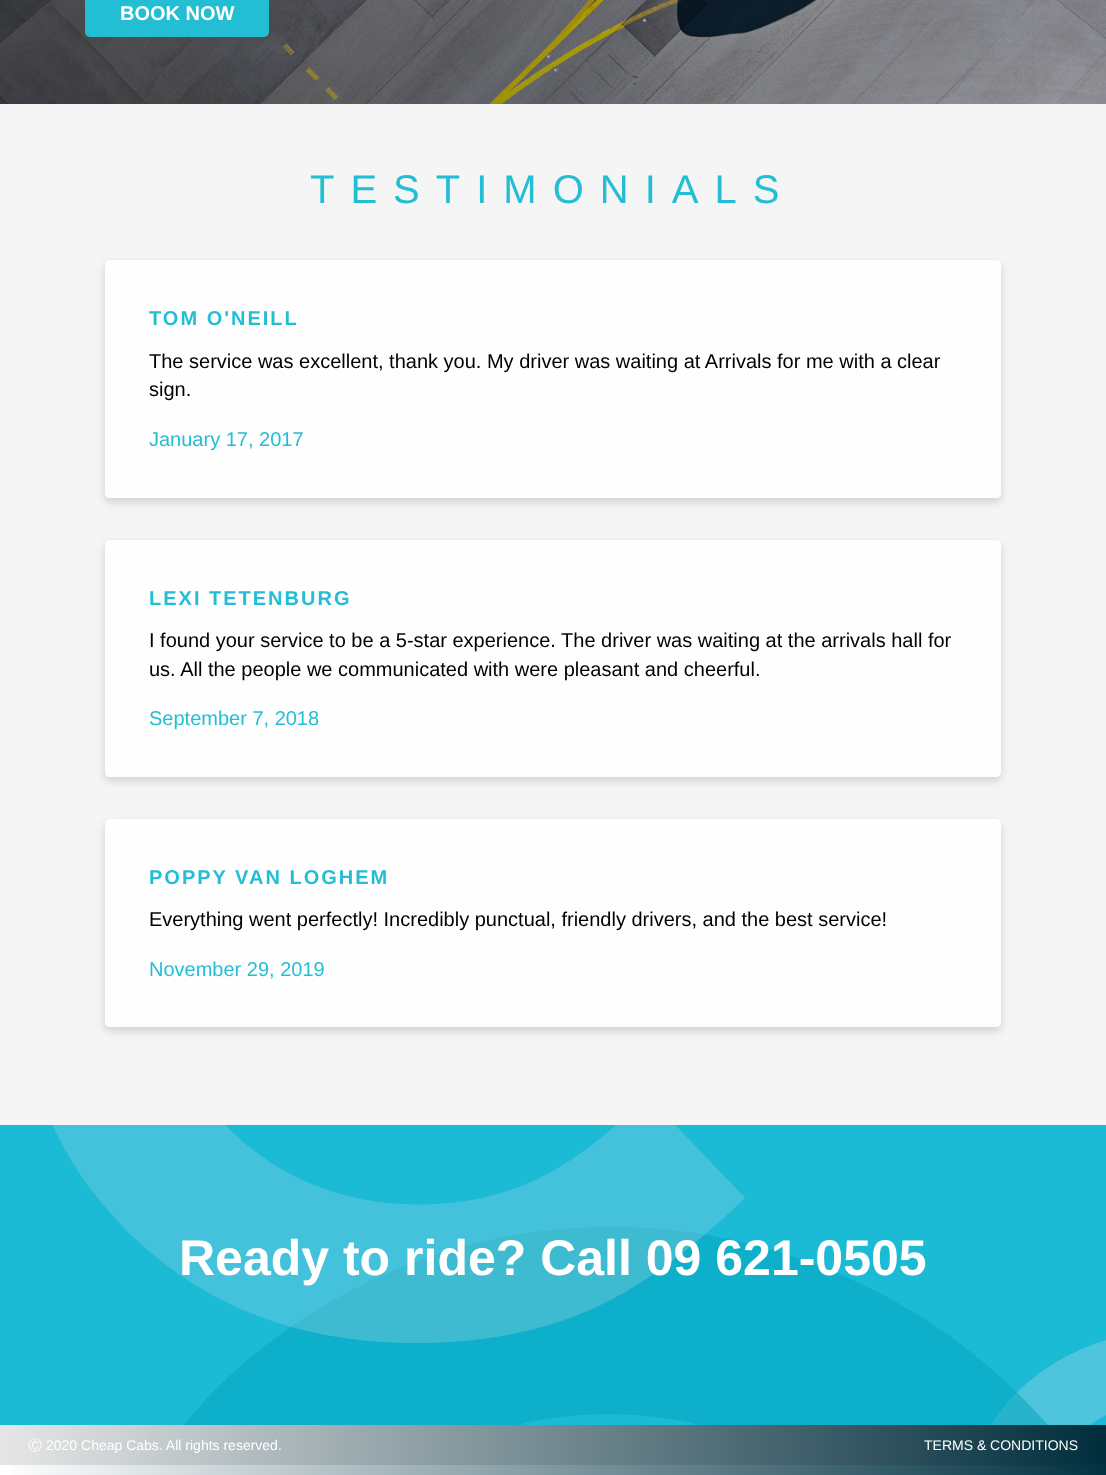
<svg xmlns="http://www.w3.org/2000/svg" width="1106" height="1475">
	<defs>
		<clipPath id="clip1"><path d="M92 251H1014V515H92ZM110 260H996C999 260 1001 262 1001 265V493C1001 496 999 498 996 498H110C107 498 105 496 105 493V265C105 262 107 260 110 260Z" clip-rule="evenodd" /></clipPath>
		<clipPath id="clip2"><path d="M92 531H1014V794H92ZM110 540H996C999 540 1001 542 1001 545V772C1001 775 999 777 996 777H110C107 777 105 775 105 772V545C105 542 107 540 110 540Z" clip-rule="evenodd" /></clipPath>
		<clipPath id="clip3"><path d="M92 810H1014V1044H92ZM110 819H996C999 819 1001 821 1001 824V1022C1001 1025 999 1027 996 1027H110C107 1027 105 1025 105 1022V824C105 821 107 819 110 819Z" clip-rule="evenodd" /></clipPath>
		<linearGradient id="g1" gradientUnits="userSpaceOnUse" x1="0" y1="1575" x2="1106" y2="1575"><stop offset="0" stop-color="#FFFFFF" /><stop offset="1" stop-color="#013243" /></linearGradient>
		<linearGradient id="g2" gradientUnits="userSpaceOnUse" x1="0" y1="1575" x2="1106" y2="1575"><stop offset="0" stop-color="#E6E6E6" /><stop offset="1" stop-color="#012D3C" /></linearGradient>
	</defs>
	<rect width="100%" height="100%" fill="#FFFFFF" />
	<image x="0" y="0" width="1106" height="104" href="assets/img1.png" />
	<rect x="85" y="-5" width="184" height="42" rx="5" fill="#23BED4" />
	<text x="120" y="20" font-family="Liberation Sans" font-size="20" font-weight="700" fill="#FFFFFF">BOOK NOW</text>
	<rect x="0" y="104" width="1106" height="1021" fill="#F4F5F4" />
	<text x="310" y="203" font-family="Liberation Sans" font-size="40" letter-spacing="16" fill="#23BED4">TESTIMONIALS</text>
	<g clip-path="url(#clip1)">
		<rect x="105" y="264" width="896" height="238" rx="5" fill="#000000" fill-opacity="0.15" filter="blur(4px)" />
	</g>
	<rect x="105" y="260" width="896" height="238" rx="5" fill="#FFFFFF" fill-opacity="0.9" />
	<text x="149" y="325" font-family="Liberation Sans" font-size="20" font-weight="700" letter-spacing="2" fill="#23BED4">TOM O'NEILL</text>
	<g font-family="Liberation Sans" font-size="20" fill="#000000">
		<text x="149" y="368">The service was excellent, thank you. My driver was waiting at Arrivals for me with a clear</text>
		<text x="149" y="396">sign.</text>
	</g>
	<text x="149" y="446" font-family="Liberation Sans" font-size="20" fill="#23BED4">January 17, 2017</text>
	<g clip-path="url(#clip2)">
		<rect x="105" y="544" width="896" height="237" rx="5" fill="#000000" fill-opacity="0.15" filter="blur(4px)" />
	</g>
	<rect x="105" y="540" width="896" height="237" rx="5" fill="#FFFFFF" fill-opacity="0.9" />
	<text x="149" y="605" font-family="Liberation Sans" font-size="20" font-weight="700" letter-spacing="2" fill="#23BED4">LEXI TETENBURG</text>
	<g font-family="Liberation Sans" font-size="20" fill="#000000">
		<text x="149" y="647">I found your service to be a 5-star experience. The driver was waiting at the arrivals hall for</text>
		<text x="149" y="676">us. All the people we communicated with were pleasant and cheerful.</text>
	</g>
	<text x="149" y="725" font-family="Liberation Sans" font-size="20" fill="#23BED4">September 7, 2018</text>
	<g clip-path="url(#clip3)">
		<rect x="105" y="823" width="896" height="208" rx="5" fill="#000000" fill-opacity="0.15" filter="blur(4px)" />
	</g>
	<rect x="105" y="819" width="896" height="208" rx="5" fill="#FFFFFF" fill-opacity="0.9" />
	<text x="149" y="884" font-family="Liberation Sans" font-size="20" font-weight="700" letter-spacing="2" fill="#23BED4">POPPY VAN LOGHEM</text>
	<text x="149" y="926" font-family="Liberation Sans" font-size="20" fill="#000000">Everything went perfectly! Incredibly punctual, friendly drivers, and the best service!</text>
	<text x="149" y="976" font-family="Liberation Sans" font-size="20" fill="#23BED4">November 29, 2019</text>
	<image x="0" y="1125" width="1106" height="300" href="assets/img2.png" />
	<text x="179" y="1275" font-family="Liberation Sans" font-size="50" font-weight="700" fill="#FFFFFF">Ready to ride? Call 09 621-0505</text>
	<rect x="11" y="1465" width="1095" height="10" fill="url(#g1)" />
	<rect x="0" y="1425" width="1106" height="40" fill="url(#g2)" />
	<text x="28" y="1450" font-family="WenQuanYi Zen Hei" font-size="14" font-weight="500" fill="#FFFFFF">Ⓒ</text>
	<g font-family="Liberation Sans" font-size="14" fill="#FFFFFF">
		<text x="46" y="1450">2020 Cheap Cabs. All rights reserved.</text>
		<text x="924" y="1450">TERMS &amp; CONDITIONS</text>
	</g>
</svg>
